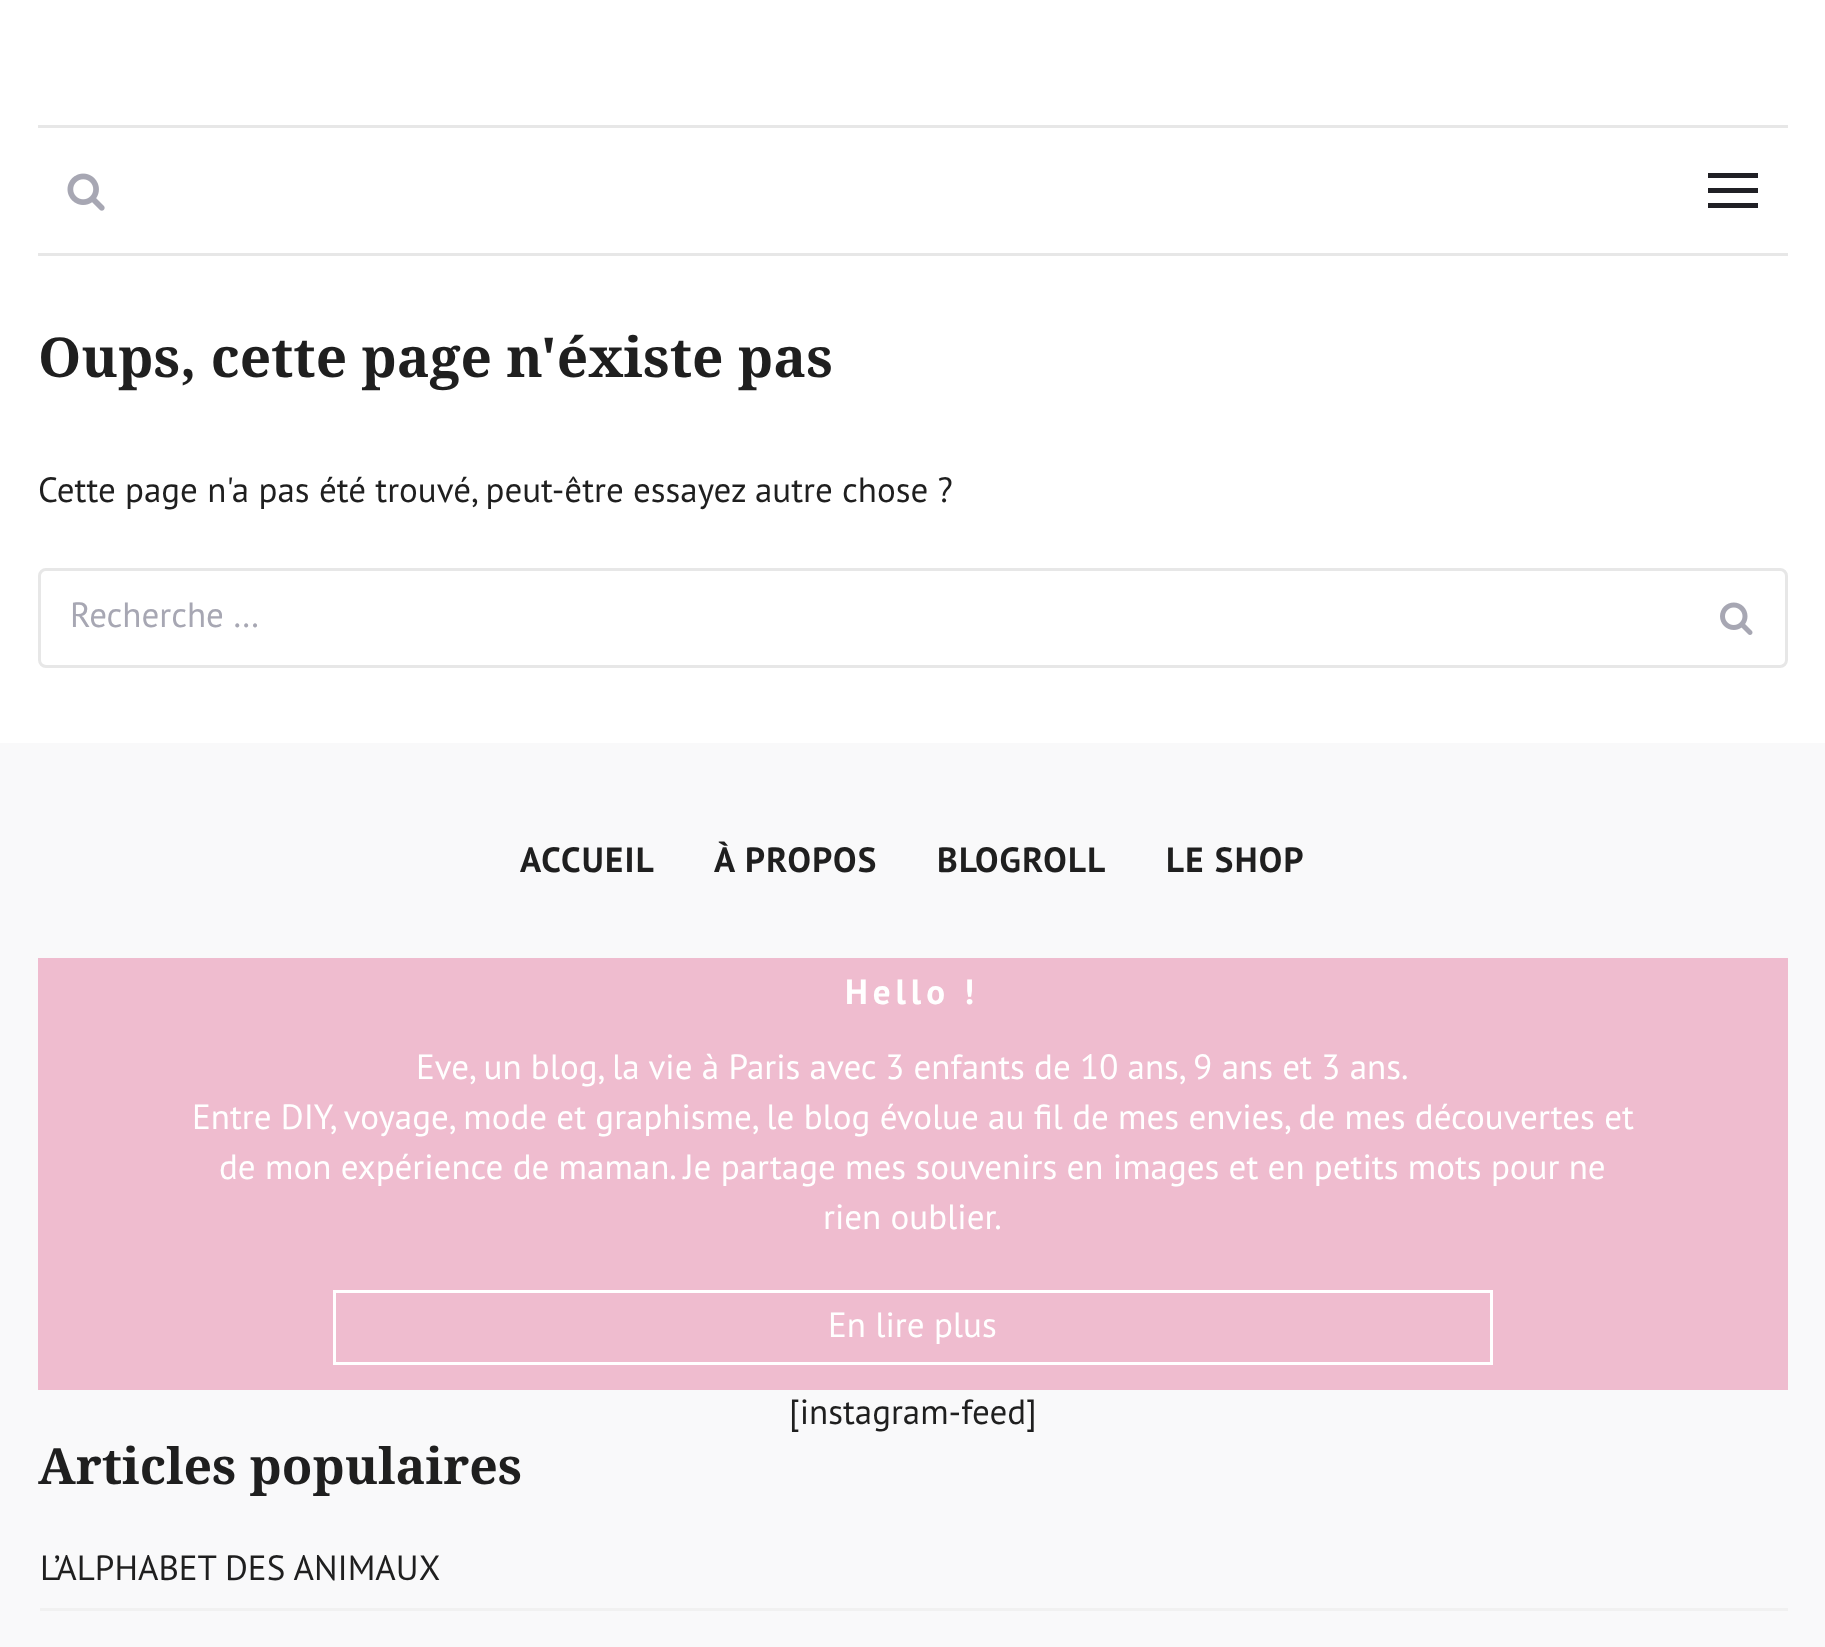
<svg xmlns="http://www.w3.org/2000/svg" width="1825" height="1647">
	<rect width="100%" height="100%" fill="#FFFFFF" />
	<rect x="38" y="125" width="1750" height="3" fill="#E7E7E7" />
	<rect x="38" y="253" width="1750" height="3" fill="#E7E7E7" />
	<image x="67" y="173" width="38" height="38" href="assets/img1.png" />
	<rect x="1708" y="173" width="50" height="5" fill="#202025" />
	<rect x="1708" y="188" width="50" height="5" fill="#202025" />
	<rect x="1708" y="203" width="50" height="5" fill="#202025" />
	<text x="38" y="377" font-family="Droid Serif" font-size="55" font-weight="700" fill="#1F1F1F">Oups, cette page n'éxiste pas</text>
	<text x="38" y="502" font-family="PT Sans" font-size="35" fill="#1F1F1F">Cette page n'a pas été trouvé, peut-être essayez autre chose ?</text>
	<rect x="39.5" y="569.5" width="1747" height="97" rx="6.5" fill="none" stroke="#E7E7E7" stroke-width="3" />
	<text x="70" y="627" font-family="PT Sans" font-size="35" fill="#A7A7B3">Recherche …</text>
	<image x="1720" y="602" width="33" height="33" href="assets/img2.png" />
	<rect x="0" y="743" width="1825" height="904" fill="#F9F9FA" />
	<g font-family="PT Sans" font-size="35" font-weight="700" letter-spacing="1.25" fill="#1F1F1F">
		<text x="520" y="872">ACCUEIL</text>
		<text x="714" y="872">À PROPOS</text>
		<text x="937" y="872">BLOGROLL</text>
		<text x="1166" y="872">LE SHOP</text>
	</g>
	<rect x="38" y="958" width="1750" height="432" fill="#EFBCCF" />
	<text x="845" y="1004" font-family="PT Sans" font-size="35" font-weight="700" letter-spacing="5" fill="#FFFFFF">Hello !</text>
	<g font-family="PT Sans" font-size="35" fill="#FFFFFF">
		<text x="416" y="1079">Eve, un blog, la vie à Paris avec 3 enfants de 10 ans, 9 ans et 3 ans.</text>
		<text x="192" y="1129">Entre DIY, voyage, mode et graphisme, le blog évolue au fil de mes envies, de mes découvertes et</text>
		<text x="219" y="1179">de mon expérience de maman. Je partage mes souvenirs en images et en petits mots pour ne</text>
		<text x="823" y="1229">rien oublier.</text>
	</g>
	<rect x="334.5" y="1291.5" width="1157" height="72" fill="none" stroke="#FFFFFF" stroke-width="3" />
	<text x="828" y="1337" font-family="PT Sans" font-size="35" fill="#FFFFFF">En lire plus</text>
	<text x="789" y="1424" font-family="PT Sans" font-size="35" fill="#1F1F1F">[instagram-feed]</text>
	<text x="38" y="1484" font-family="Droid Serif" font-size="50" font-weight="700" fill="#1F1F1F">Articles populaires</text>
	<rect x="40" y="1608" width="1748" height="3" fill="#F1F1F1" />
	<text x="40" y="1580" font-family="PT Sans" font-size="35" fill="#1F1F1F">L’ALPHABET DES ANIMAUX</text>
</svg>
